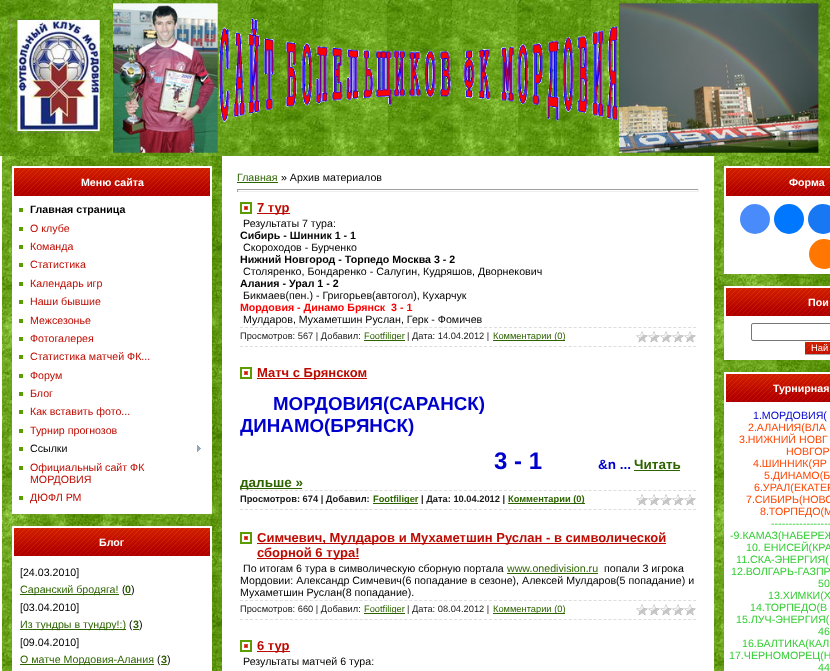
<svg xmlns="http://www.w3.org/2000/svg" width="830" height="671">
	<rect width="100%" height="100%" fill="#FFFFFF" />
	<image x="0" y="0" width="830" height="156" href="assets/img1.png" />
	<image x="2" y="156" width="220" height="515" href="assets/img2.png" />
	<image x="12" y="166" width="200" height="32" href="assets/img3.png" />
	<text x="81" y="186" font-family="Liberation Sans" font-size="10.65" font-weight="700" fill="#FFFFFF">Меню сайта</text>
	<rect x="12" y="198" width="200" height="316" fill="#FFFFFF" />
	<rect x="19" y="208" width="4" height="4" fill="#5B9D00" />
	<text x="30" y="213" font-family="Liberation Sans" font-size="10.65" font-weight="700" fill="#000000">Главная страница</text>
	<rect x="19" y="227" width="4" height="4" fill="#5B9D00" />
	<text x="30" y="232" font-family="Liberation Sans" font-size="10.65" fill="#BD0A00">О клубе</text>
	<rect x="19" y="245" width="4" height="4" fill="#5B9D00" />
	<text x="30" y="250" font-family="Liberation Sans" font-size="10.65" fill="#BD0A00">Команда</text>
	<rect x="19" y="263" width="4" height="4" fill="#5B9D00" />
	<text x="30" y="268" font-family="Liberation Sans" font-size="10.65" fill="#BD0A00">Статистика</text>
	<rect x="19" y="282" width="4" height="4" fill="#5B9D00" />
	<text x="30" y="287" font-family="Liberation Sans" font-size="10.65" fill="#BD0A00">Календарь игр</text>
	<rect x="19" y="300" width="4" height="4" fill="#5B9D00" />
	<text x="30" y="305" font-family="Liberation Sans" font-size="10.65" fill="#BD0A00">Наши бывшие</text>
	<rect x="19" y="319" width="4" height="4" fill="#5B9D00" />
	<text x="30" y="324" font-family="Liberation Sans" font-size="10.65" fill="#BD0A00">Межсезонье</text>
	<rect x="19" y="337" width="4" height="4" fill="#5B9D00" />
	<text x="30" y="342" font-family="Liberation Sans" font-size="10.65" fill="#BD0A00">Фотогалерея</text>
	<rect x="19" y="355" width="4" height="4" fill="#5B9D00" />
	<text x="30" y="360" font-family="Liberation Sans" font-size="10.65" fill="#BD0A00">Статистика матчей ФК...</text>
	<rect x="19" y="374" width="4" height="4" fill="#5B9D00" />
	<text x="30" y="379" font-family="Liberation Sans" font-size="10.65" fill="#BD0A00">Форум</text>
	<rect x="19" y="392" width="4" height="4" fill="#5B9D00" />
	<text x="30" y="397" font-family="Liberation Sans" font-size="10.65" fill="#BD0A00">Блог</text>
	<rect x="19" y="410" width="4" height="4" fill="#5B9D00" />
	<text x="30" y="415" font-family="Liberation Sans" font-size="10.65" fill="#BD0A00">Как вставить фото...</text>
	<rect x="19" y="429" width="4" height="4" fill="#5B9D00" />
	<text x="30" y="434" font-family="Liberation Sans" font-size="10.65" fill="#BD0A00">Турнир прогнозов</text>
	<rect x="19" y="447" width="4" height="4" fill="#5B9D00" />
	<text x="30" y="452" font-family="Liberation Sans" font-size="10.65" fill="#000000">Ссылки</text>
	<image x="197" y="445" width="4" height="7" href="assets/img4.png" />
	<rect x="19" y="466" width="4" height="4" fill="#5B9D00" />
	<g font-family="Liberation Sans" font-size="10.65" fill="#BD0A00">
		<text x="30" y="471">Официальный сайт ФК</text>
		<text x="30" y="483">МОРДОВИЯ</text>
	</g>
	<rect x="19" y="496" width="4" height="4" fill="#5B9D00" />
	<text x="30" y="501" font-family="Liberation Sans" font-size="10.65" fill="#BD0A00">ДЮФЛ РМ</text>
	<image x="12" y="526" width="200" height="32" href="assets/img3.png" />
	<text x="99" y="546" font-family="Liberation Sans" font-size="10.65" font-weight="700" fill="#FFFFFF">Блог</text>
	<rect x="12" y="558" width="200" height="113" fill="#FFFFFF" />
	<text x="20" y="576" font-family="Liberation Sans" font-size="10.65" fill="#000000">[24.03.2010]</text>
	<rect x="20" y="594" width="99" height="1" fill="#2E6400" />
	<text x="20" y="593" font-family="Liberation Sans" font-size="10.65" fill="#2E6400">Саранский бродяга!</text>
	<text x="122" y="593" font-family="Liberation Sans" font-size="10.65" fill="#000000">(</text>
	<rect x="125" y="594" width="6" height="1" fill="#2E6400" />
	<text x="125" y="593" font-family="Liberation Sans" font-size="10.65" font-weight="700" fill="#2E6400">0</text>
	<g font-family="Liberation Sans" font-size="10.65" fill="#000000">
		<text x="131" y="593">)</text>
		<text x="20" y="611">[03.04.2010]</text>
	</g>
	<rect x="20" y="629" width="106" height="1" fill="#2E6400" />
	<text x="20" y="628" font-family="Liberation Sans" font-size="10.65" fill="#2E6400">Из тундры в тундру!:)</text>
	<text x="129" y="628" font-family="Liberation Sans" font-size="10.65" fill="#000000">(</text>
	<rect x="133" y="629" width="6" height="1" fill="#2E6400" />
	<text x="133" y="628" font-family="Liberation Sans" font-size="10.65" font-weight="700" fill="#2E6400">3</text>
	<g font-family="Liberation Sans" font-size="10.65" fill="#000000">
		<text x="139" y="628">)</text>
		<text x="20" y="646">[09.04.2010]</text>
	</g>
	<rect x="20" y="664" width="134" height="1" fill="#2E6400" />
	<text x="20" y="663" font-family="Liberation Sans" font-size="10.65" fill="#2E6400">О матче Мордовия-Алания</text>
	<text x="157" y="663" font-family="Liberation Sans" font-size="10.65" fill="#000000">(</text>
	<rect x="161" y="664" width="6" height="1" fill="#2E6400" />
	<text x="161" y="663" font-family="Liberation Sans" font-size="10.65" font-weight="700" fill="#2E6400">3</text>
	<text x="167" y="663" font-family="Liberation Sans" font-size="10.65" fill="#000000">)</text>
	<text x="237" y="181" font-family="Liberation Sans" font-size="10.65" fill="#2E6400">Главная</text>
	<rect x="237" y="182" width="41" height="1" fill="#2E6400" />
	<text x="281" y="181" font-family="Liberation Sans" font-size="10.65" fill="#000000">» Архив материалов</text>
	<rect x="237" y="189" width="462" height="1" fill="#9F9F9F" />
	<rect x="698" y="189" width="1" height="3" fill="#EEEEEE" />
	<rect x="237" y="191" width="462" height="1" fill="#EEEEEE" />
	<rect x="237" y="189" width="1" height="3" fill="#9F9F9F" />
	<image x="240" y="202" width="12" height="12" href="assets/img5.png" />
	<rect x="257" y="213" width="33" height="1" fill="#BD0A00" />
	<text x="257" y="212" font-family="Liberation Sans" font-size="13" font-weight="700" fill="#BD0A00">7 тур</text>
	<text x="243" y="227" font-family="Liberation Sans" font-size="10.65" fill="#000000">Результаты 7 тура:</text>
	<text x="240" y="239" font-family="Liberation Sans" font-size="10.65" font-weight="700" fill="#000000">Сибирь - Шинник 1 - 1</text>
	<text x="243" y="251" font-family="Liberation Sans" font-size="10.65" fill="#000000">Скороходов - Бурченко</text>
	<text x="240" y="263" font-family="Liberation Sans" font-size="10.65" font-weight="700" fill="#000000">Нижний Новгород - Торпедо Москва 3 - 2</text>
	<text x="243" y="275" font-family="Liberation Sans" font-size="10.65" fill="#000000">Столяренко, Бондаренко - Салугин, Кудряшов, Дворнекович</text>
	<text x="240" y="287" font-family="Liberation Sans" font-size="10.65" font-weight="700" fill="#000000">Алания - Урал 1 - 2</text>
	<text x="243" y="299" font-family="Liberation Sans" font-size="10.65" fill="#000000">Бикмаев(пен.) - Григорьев(автогол), Кухарчук</text>
	<text x="240" y="311" font-family="Liberation Sans" font-size="10.65" font-weight="700" fill="#FF0000" xml:space="preserve">Мордовия - Динамо Брянск  3 - 1</text>
	<text x="243" y="323" font-family="Liberation Sans" font-size="10.65" fill="#000000">Мулдаров, Мухаметшин Руслан, Герк - Фомичев</text>
	<path d="M240 327.5H696" fill="none" stroke="#DDDDDD" stroke-dasharray="3 1.98" />
	<path d="M240 346.5H696" fill="none" stroke="#DDDDDD" stroke-dasharray="3 1.98" />
	<text x="240" y="339" font-family="Liberation Sans" font-size="9.3" fill="#1A1A1A">Просмотров: 567 | Добавил:</text>
	<rect x="364" y="340" width="41" height="1" fill="#2E6400" />
	<text x="364" y="339" font-family="Liberation Sans" font-size="9.3" fill="#2E6400">Footfiliger</text>
	<text x="407" y="339" font-family="Liberation Sans" font-size="9.3" fill="#1A1A1A">| Дата: 14.04.2012 |</text>
	<rect x="493" y="340" width="72" height="1" fill="#2E6400" />
	<text x="493" y="339" font-family="Liberation Sans" font-size="9.3" fill="#2E6400">Комментарии (0)</text>
	<image x="636" y="331" width="60" height="12" href="assets/img6.png" />
	<image x="240" y="367" width="12" height="12" href="assets/img5.png" />
	<rect x="257" y="378" width="110" height="1" fill="#BD0A00" />
	<text x="257" y="377" font-family="Liberation Sans" font-size="13" font-weight="700" fill="#BD0A00">Матч с Брянском</text>
	<g font-family="Liberation Sans" font-size="18.75" font-weight="700" fill="#0000CD">
		<text x="273" y="410">МОРДОВИЯ(САРАНСК)</text>
		<text x="240" y="432">ДИНАМО(БРЯНСК)</text>
	</g>
	<text x="494" y="469" font-family="Liberation Sans" font-size="24" font-weight="700" fill="#0000CD">3 - 1</text>
	<text x="598" y="469" font-family="Liberation Sans" font-size="13.5" font-weight="700" fill="#0000CD">&amp;n ...</text>
	<text x="634" y="469" font-family="Liberation Sans" font-size="13.5" font-weight="700" fill="#2E6400">Читать</text>
	<rect x="634" y="470" width="46" height="1" fill="#2E6400" />
	<rect x="240" y="488" width="62" height="1" fill="#2E6400" />
	<text x="240" y="487" font-family="Liberation Sans" font-size="13.5" font-weight="700" fill="#2E6400">дальше »</text>
	<path d="M240 490.5H696" fill="none" stroke="#DDDDDD" stroke-dasharray="3 1.98" />
	<path d="M240 509.5H696" fill="none" stroke="#DDDDDD" stroke-dasharray="3 1.98" />
	<text x="240" y="502" font-family="Liberation Sans" font-size="9.3" font-weight="700" fill="#1A1A1A">Просмотров: 674 | Добавил:</text>
	<rect x="373" y="503" width="45" height="1" fill="#2E6400" />
	<text x="373" y="502" font-family="Liberation Sans" font-size="9.3" font-weight="700" fill="#2E6400">Footfiliger</text>
	<text x="421" y="502" font-family="Liberation Sans" font-size="9.3" font-weight="700" fill="#1A1A1A">| Дата: 10.04.2012 |</text>
	<rect x="508" y="503" width="77" height="1" fill="#2E6400" />
	<text x="508" y="502" font-family="Liberation Sans" font-size="9.3" font-weight="700" fill="#2E6400">Комментарии (0)</text>
	<image x="636" y="494" width="60" height="12" href="assets/img6.png" />
	<image x="240" y="532" width="12" height="12" href="assets/img5.png" />
	<rect x="257" y="543" width="409" height="1" fill="#BD0A00" />
	<text x="257" y="542" font-family="Liberation Sans" font-size="13" font-weight="700" fill="#BD0A00">Симчевич, Мулдаров и Мухаметшин Руслан - в символической</text>
	<rect x="257" y="558" width="102" height="1" fill="#BD0A00" />
	<text x="257" y="557" font-family="Liberation Sans" font-size="13" font-weight="700" fill="#BD0A00">сборной 6 тура!</text>
	<text x="243" y="572" font-family="Liberation Sans" font-size="10.65" fill="#000000">По итогам 6 тура в символическую сборную портала</text>
	<text x="507" y="572" font-family="Liberation Sans" font-size="10.65" fill="#2E6400">www.onedivision.ru</text>
	<rect x="507" y="573" width="91" height="1" fill="#2E6400" />
	<g font-family="Liberation Sans" font-size="10.65" fill="#000000">
		<text x="604" y="572">попали 3 игрока</text>
		<text x="240" y="584">Мордовии: Александр Симчевич(6 попадание в сезоне), Алексей Мулдаров(5 попадание) и</text>
		<text x="240" y="596">Мухаметшин Руслан(8 попадание).</text>
	</g>
	<path d="M240 600.5H696" fill="none" stroke="#DDDDDD" stroke-dasharray="3 1.98" />
	<path d="M240 619.5H696" fill="none" stroke="#DDDDDD" stroke-dasharray="3 1.98" />
	<text x="240" y="612" font-family="Liberation Sans" font-size="9.3" fill="#1A1A1A">Просмотров: 660 | Добавил:</text>
	<rect x="364" y="613" width="41" height="1" fill="#2E6400" />
	<text x="364" y="612" font-family="Liberation Sans" font-size="9.3" fill="#2E6400">Footfiliger</text>
	<text x="407" y="612" font-family="Liberation Sans" font-size="9.3" fill="#1A1A1A">| Дата: 08.04.2012 |</text>
	<rect x="493" y="613" width="72" height="1" fill="#2E6400" />
	<text x="493" y="612" font-family="Liberation Sans" font-size="9.3" fill="#2E6400">Комментарии (0)</text>
	<image x="636" y="604" width="60" height="12" href="assets/img6.png" />
	<image x="240" y="640" width="12" height="12" href="assets/img5.png" />
	<rect x="257" y="651" width="33" height="1" fill="#BD0A00" />
	<text x="257" y="650" font-family="Liberation Sans" font-size="13" font-weight="700" fill="#BD0A00">6 тур</text>
	<text x="243" y="665" font-family="Liberation Sans" font-size="10.65" fill="#000000">Результаты матчей 6 тура:</text>
	<image x="714" y="156" width="116" height="515" href="assets/img7.png" />
	<image x="724" y="166" width="106" height="32" href="assets/img8.png" />
	<text x="789" y="186" font-family="Liberation Sans" font-size="10.65" font-weight="700" fill="#FFFFFF">Форма</text>
	<rect x="724" y="198" width="106" height="76" fill="#FFFFFF" />
	<circle cx="755" cy="219" r="15" fill="#498BFA" />
	<circle cx="789" cy="219" r="15" fill="#0077FF" />
	<circle cx="823" cy="219" r="15" fill="#1877F2" />
	<circle cx="824" cy="254" r="15" fill="#FF7700" />
	<image x="724" y="286" width="106" height="32" href="assets/img8.png" />
	<text x="808" y="306" font-family="Liberation Sans" font-size="10.65" font-weight="700" fill="#FFFFFF">Пои</text>
	<rect x="724" y="318" width="106" height="42" fill="#FFFFFF" />
	<rect x="751.5" y="323.5" width="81" height="17" rx="1.5" fill="none" stroke="#767676" />
	<image x="805" y="342" width="25" height="12" href="assets/img9.png" />
	<rect x="804" y="354" width="26" height="1" fill="#AAAAAA" />
	<rect x="804" y="354" width="1" height="1" fill="#FFFFFF" />
	<text x="811" y="351" font-family="Liberation Sans" font-size="9.3" fill="#FFFFFF">Най</text>
	<image x="724" y="372" width="106" height="32" href="assets/img8.png" />
	<text x="773" y="392" font-family="Liberation Sans" font-size="10.65" font-weight="700" fill="#FFFFFF">Турнирная</text>
	<rect x="724" y="404" width="106" height="267" fill="#FFFFFF" />
	<text x="753" y="419" font-family="Liberation Sans" font-size="10.65" fill="#0000CD">1.МОРДОВИЯ(</text>
	<g font-family="Liberation Sans" font-size="10.65" fill="#FF4500">
		<text x="748" y="431">2.АЛАНИЯ(ВЛА</text>
		<text x="739" y="443">3.НИЖНИЙ НОВГ</text>
		<text x="786" y="455">НОВГОР</text>
		<text x="753" y="467">4.ШИННИК(ЯР</text>
		<text x="764" y="479">5.ДИНАМО(Б</text>
		<text x="754" y="491">6.УРАЛ(ЕКАТЕР</text>
		<text x="746" y="503">7.СИБИРЬ(НОВО</text>
		<text x="760" y="515">8.ТОРПЕДО(М</text>
	</g>
	<g font-family="Liberation Sans" font-size="10.65" fill="#32CD32">
		<text x="771" y="527">-----------------</text>
		<text x="730" y="539">-9.КАМАЗ(НАБЕРЕЖ</text>
		<text x="746" y="551">10. ЕНИСЕЙ(КРА</text>
		<text x="736" y="563">11.СКА-ЭНЕРГИЯ(</text>
		<text x="731" y="575">12.ВОЛГАРЬ-ГАЗПР</text>
		<text x="818" y="587">50</text>
		<text x="768" y="599">13.ХИМКИ(Х</text>
		<text x="750" y="611">14.ТОРПЕДО(В</text>
		<text x="736" y="623">15.ЛУЧ-ЭНЕРГИЯ(</text>
		<text x="818" y="635">46</text>
		<text x="742" y="647">16.БАЛТИКА(КАЛ</text>
		<text x="729" y="659">17.ЧЕРНОМОРЕЦ(Н</text>
		<text x="818" y="671">44</text>
	</g>
</svg>
